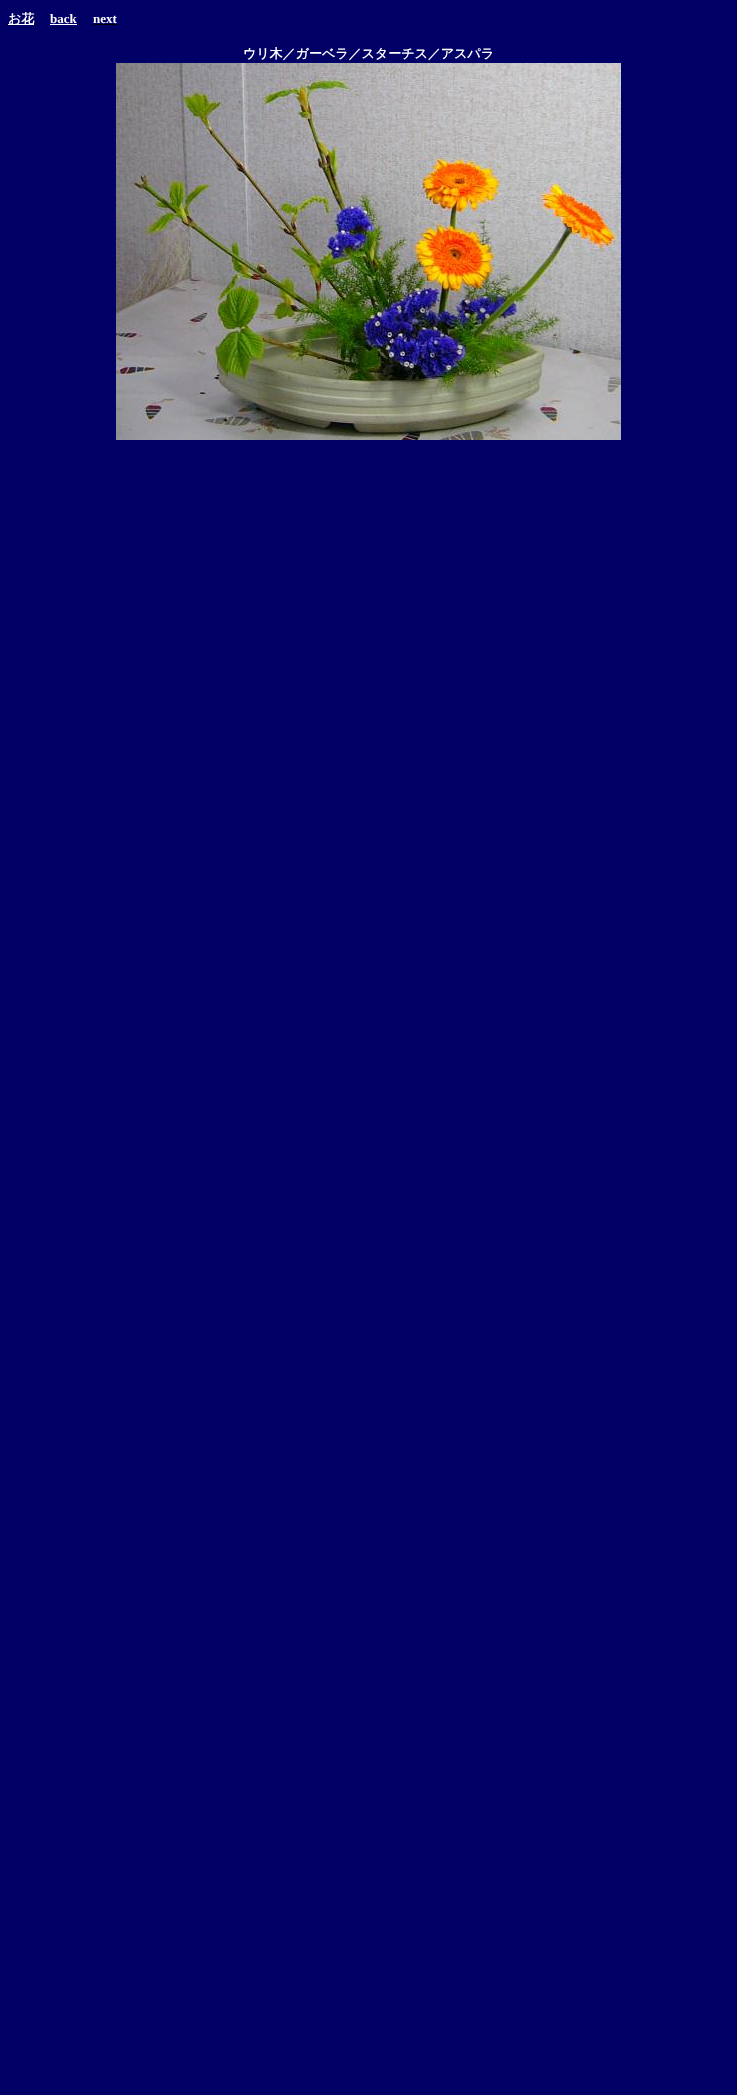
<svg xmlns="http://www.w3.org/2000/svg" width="737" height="2095">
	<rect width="100%" height="100%" fill="#000066" />
	<rect x="8" y="24" width="26" height="1" fill="#FFFFFF" />
	<text x="8" y="23" font-family="WenQuanYi Zen Hei" font-size="13" font-weight="700" fill="#FFFFFF">お花</text>
	<text x="50" y="23" font-family="Liberation Serif" font-size="13" font-weight="700" fill="#FFFFFF">back</text>
	<rect x="50" y="24" width="27" height="1" fill="#FFFFFF" />
	<text x="93" y="23" font-family="Liberation Serif" font-size="13" font-weight="700" fill="#FFFFFF">next</text>
	<rect x="93" y="24" width="24" height="1" fill="#000000" />
	<text x="243" y="58" font-family="WenQuanYi Zen Hei" font-size="13" font-weight="700" fill="#FFFFFF">ウリ木／ガーベラ／スターチス／アスパラ</text>
	<image x="116" y="63" width="505" height="377" href="assets/img1.png" />
</svg>
